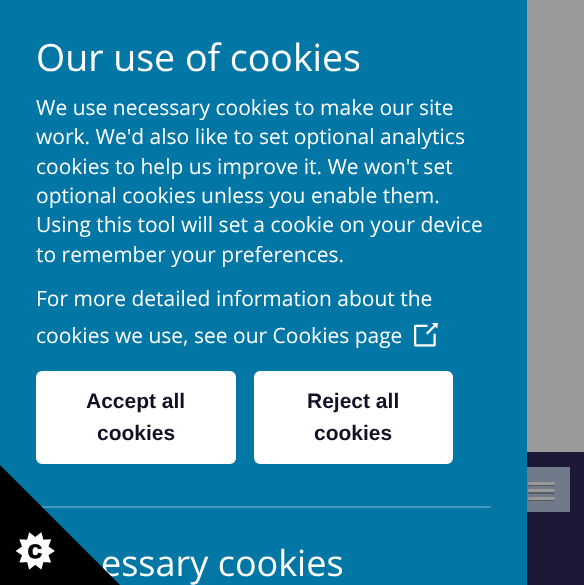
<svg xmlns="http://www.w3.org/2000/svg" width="584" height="585">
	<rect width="100%" height="100%" fill="#999999" />
	<rect x="0" y="0" width="527" height="585" fill="#0276A5" />
	<text x="36" y="71" font-family="Open Sans" font-size="37.5" fill="#FFFFFF">Our use of cookies</text>
	<g font-family="Open Sans" font-size="21" fill="#FFFFFF">
		<text x="36" y="115">We use necessary cookies to make our site</text>
		<text x="36" y="144">work. We'd also like to set optional analytics</text>
		<text x="36" y="174">cookies to help us improve it. We won't set</text>
		<text x="36" y="203">optional cookies unless you enable them.</text>
		<text x="36" y="232">Using this tool will set a cookie on your device</text>
		<text x="36" y="262">to remember your preferences.</text>
		<text x="36" y="306">For more detailed information about the</text>
		<text x="36" y="343">cookies we use, see our Cookies page</text>
	</g>
	<image x="414" y="323" width="24" height="24" href="assets/img1.png" />
	<rect x="37.5" y="372.5" width="197" height="90" rx="4.5" fill="#FFFFFF" stroke="#FFFFFF" stroke-width="3" />
	<g font-family="Liberation Sans" font-size="21" font-weight="700" fill="#111125">
		<text x="86" y="408">Accept all</text>
		<text x="97" y="440">cookies</text>
	</g>
	<rect x="255.5" y="372.5" width="196" height="90" rx="4.5" fill="#FFFFFF" stroke="#FFFFFF" stroke-width="3" />
	<g font-family="Liberation Sans" font-size="21" font-weight="700" fill="#111125">
		<text x="307" y="408">Reject all</text>
		<text x="314" y="440">cookies</text>
	</g>
	<rect x="36" y="506" width="455" height="2" fill="#4198BC" />
	<text x="101" y="576" font-family="Open Sans" font-size="36" fill="#FFFFFF">essary cookies</text>
	<image x="0" y="465" width="120" height="120" href="assets/img2.png" />
	<rect x="527" y="452" width="57" height="133" fill="#1C1937" />
	<rect x="527" y="467" width="43" height="45" fill="#707A8A" />
	<path d="M528 484C526.5 487 533.5 486 533.5 486H549.5C549.5 486 556.5 487 555 484C554.5 484 554 484.5 553.5 484.5H529.5C529 484.5 528.5 484 528 484Z" fill="#545C68" />
	<rect x="528" y="482" width="27" height="3" rx="1.5" fill="#999999" />
	<path d="M528.5 491.5L528 493C528.5 495 533 494 533.5 494H549.5C550 494 554.5 495 555 493L554.5 491.5L553.5 492H529.5Z" fill="#545C68" />
	<rect x="528" y="489" width="27" height="3" rx="1.5" fill="#999999" />
	<path d="M528 499C526.5 502 533.5 501 533.5 501H549.5C549.5 501 556.5 502 555 499C554.5 499 554 499.5 553.5 499.5H529.5C529 499.5 528.5 499 528 499Z" fill="#545C68" />
	<rect x="528" y="497" width="27" height="3" rx="1.5" fill="#999999" />
</svg>
